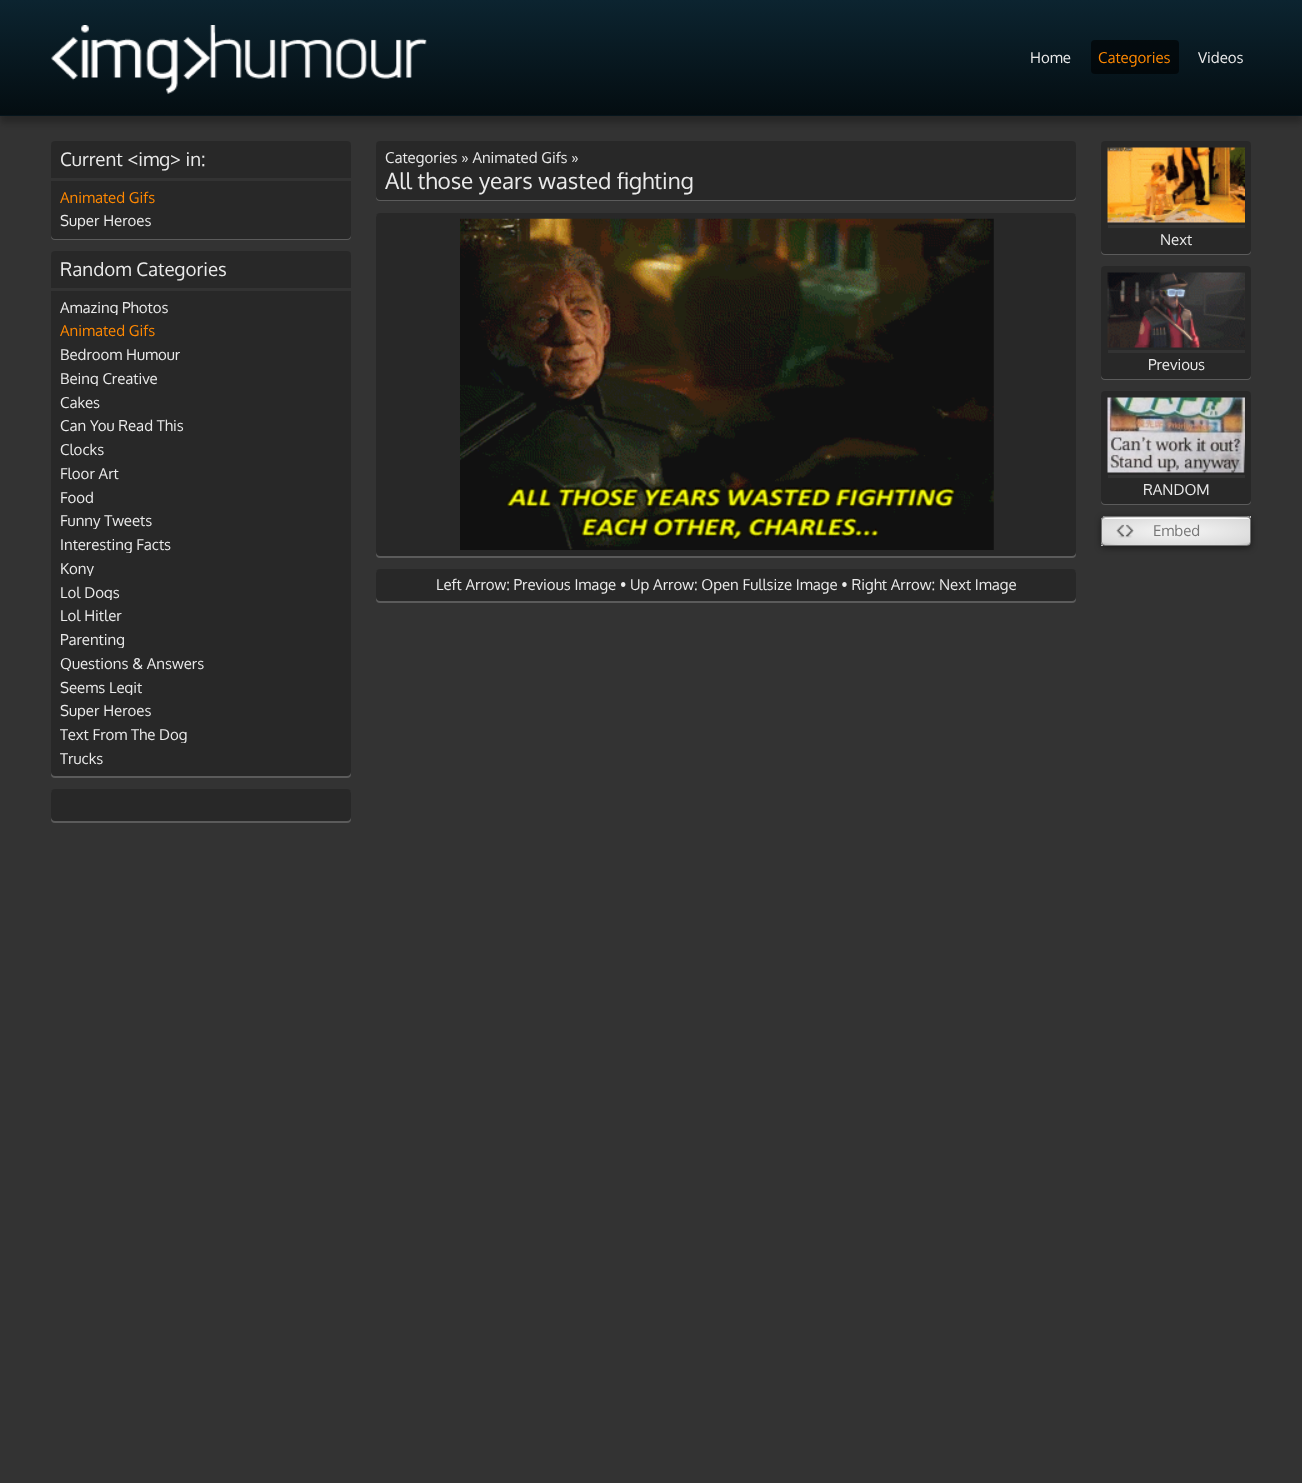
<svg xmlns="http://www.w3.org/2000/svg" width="1302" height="1483">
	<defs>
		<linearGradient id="g1" gradientUnits="userSpaceOnUse" x1="651" y1="0" x2="651" y2="115"><stop offset="0" stop-color="#0C2430" /><stop offset="1" stop-color="#040D11" /></linearGradient>
		<clipPath id="clip1"><path d="M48 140H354V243H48ZM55 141H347C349 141 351 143 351 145V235C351 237 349 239 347 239H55C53 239 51 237 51 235V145C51 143 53 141 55 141Z" clip-rule="evenodd" /></clipPath>
		<clipPath id="clip2"><path d="M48 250H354V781H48ZM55 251H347C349 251 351 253 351 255V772C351 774 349 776 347 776H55C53 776 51 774 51 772V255C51 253 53 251 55 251Z" clip-rule="evenodd" /></clipPath>
		<clipPath id="clip3"><rect x="60" y="300" width="225" height="15" /></clipPath>
		<clipPath id="clip4"><rect x="60" y="371" width="225" height="15" /></clipPath>
		<clipPath id="clip5"><rect x="60" y="514" width="225" height="15" /></clipPath>
		<clipPath id="clip6"><rect x="60" y="538" width="225" height="15" /></clipPath>
		<clipPath id="clip7"><rect x="60" y="561" width="225" height="15" /></clipPath>
		<clipPath id="clip8"><rect x="60" y="585" width="225" height="15" /></clipPath>
		<clipPath id="clip9"><rect x="60" y="633" width="225" height="15" /></clipPath>
		<clipPath id="clip10"><rect x="60" y="656" width="225" height="15" /></clipPath>
		<clipPath id="clip11"><rect x="60" y="680" width="225" height="15" /></clipPath>
		<clipPath id="clip12"><rect x="60" y="728" width="225" height="15" /></clipPath>
		<clipPath id="clip13"><path d="M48 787H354V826H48ZM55 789H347C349 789 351 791 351 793V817C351 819 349 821 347 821H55C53 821 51 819 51 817V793C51 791 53 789 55 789Z" clip-rule="evenodd" /></clipPath>
		<clipPath id="clip14"><path d="M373 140H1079V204H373ZM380 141H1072C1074 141 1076 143 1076 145V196C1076 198 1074 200 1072 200H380C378 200 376 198 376 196V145C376 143 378 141 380 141Z" clip-rule="evenodd" /></clipPath>
		<clipPath id="clip15"><path d="M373 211H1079V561H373ZM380 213H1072C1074 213 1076 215 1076 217V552C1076 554 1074 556 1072 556H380C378 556 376 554 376 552V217C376 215 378 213 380 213Z" clip-rule="evenodd" /></clipPath>
		<clipPath id="clip16"><path d="M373 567H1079V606H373ZM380 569H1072C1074 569 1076 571 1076 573V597C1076 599 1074 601 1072 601H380C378 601 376 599 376 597V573C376 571 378 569 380 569Z" clip-rule="evenodd" /></clipPath>
		<clipPath id="clip17"><path d="M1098 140H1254V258H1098ZM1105 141H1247C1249 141 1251 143 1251 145V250C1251 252 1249 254 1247 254H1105C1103 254 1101 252 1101 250V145C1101 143 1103 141 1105 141Z" clip-rule="evenodd" /></clipPath>
		<clipPath id="clip18"><path d="M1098 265H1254V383H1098ZM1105 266H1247C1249 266 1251 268 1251 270V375C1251 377 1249 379 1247 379H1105C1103 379 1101 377 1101 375V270C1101 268 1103 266 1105 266Z" clip-rule="evenodd" /></clipPath>
		<clipPath id="clip19"><path d="M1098 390H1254V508H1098ZM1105 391H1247C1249 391 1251 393 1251 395V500C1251 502 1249 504 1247 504H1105C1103 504 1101 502 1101 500V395C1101 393 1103 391 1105 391Z" clip-rule="evenodd" /></clipPath>
		<clipPath id="clip20"><rect x="1101" y="516" width="150" height="30" rx="4" /></clipPath>
		<radialGradient id="g2" gradientUnits="userSpaceOnUse" cx="0" cy="0" r="1" gradientTransform="matrix(104 0 0 19 1176 504)"><stop offset="0" stop-color="#FCFCFC" /><stop offset="0.03" stop-color="#F7F7F7" /><stop offset="0.12" stop-color="#F2F2F2" /><stop offset="0.9" stop-color="#D9D9D9" /><stop offset="1" stop-color="#BFBFBF" /></radialGradient>
		<radialGradient id="g3" gradientUnits="userSpaceOnUse" cx="0" cy="0" r="1" gradientTransform="matrix(104 0 0 19 1324 504)"><stop offset="0" stop-color="#FCFCFC" /><stop offset="0.03" stop-color="#F7F7F7" /><stop offset="0.12" stop-color="#F2F2F2" /><stop offset="0.9" stop-color="#D9D9D9" /><stop offset="1" stop-color="#BFBFBF" /></radialGradient>
		<radialGradient id="g4" gradientUnits="userSpaceOnUse" cx="0" cy="0" r="1" gradientTransform="matrix(104 0 0 19 1029 531)"><stop offset="0" stop-color="#FCFCFC" /><stop offset="0.03" stop-color="#F7F7F7" /><stop offset="0.12" stop-color="#F2F2F2" /><stop offset="0.9" stop-color="#D9D9D9" /><stop offset="1" stop-color="#BFBFBF" /></radialGradient>
		<radialGradient id="g5" gradientUnits="userSpaceOnUse" cx="0" cy="0" r="1" gradientTransform="matrix(104 0 0 19 1176 531)"><stop offset="0" stop-color="#FCFCFC" /><stop offset="0.03" stop-color="#F7F7F7" /><stop offset="0.12" stop-color="#F2F2F2" /><stop offset="0.9" stop-color="#D9D9D9" /><stop offset="1" stop-color="#BFBFBF" /></radialGradient>
		<radialGradient id="g6" gradientUnits="userSpaceOnUse" cx="0" cy="0" r="1" gradientTransform="matrix(104 0 0 19 1029 559)"><stop offset="0" stop-color="#FCFCFC" /><stop offset="0.03" stop-color="#F7F7F7" /><stop offset="0.12" stop-color="#F2F2F2" /><stop offset="0.9" stop-color="#D9D9D9" /><stop offset="1" stop-color="#BFBFBF" /></radialGradient>
	</defs>
	<rect width="100%" height="100%" fill="#333333" />
	<rect x="0" y="6" width="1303" height="117" fill="#0A0A0A" fill-opacity="0.3" filter="blur(3px)" />
	<rect x="0" y="0" width="1302" height="115" fill="url(#g1)" />
	<rect x="0" y="115" width="1302" height="1" fill="#06151C" />
	<image x="51" y="25" width="376" height="69" href="assets/img1.png" />
	<text x="1030" y="63" font-family="Oxygen" font-size="15" fill="#EAEAEA">Home</text>
	<rect x="1091" y="40" width="88" height="34" rx="4" fill="#000000" fill-opacity="0.6" />
	<text x="1098" y="63" font-family="Oxygen" font-size="15" fill="#FF8800">Categories</text>
	<text x="1198" y="63" font-family="Oxygen" font-size="15" fill="#EAEAEA">Videos</text>
	<g clip-path="url(#clip1)">
		<rect x="51" y="143" width="300" height="97" rx="4" fill="#FFFFFF" fill-opacity="0.2" filter="blur(0.5px)" />
	</g>
	<rect x="51" y="141" width="300" height="98" rx="4" fill="#000000" fill-opacity="0.2" />
	<rect x="51" y="178" width="300" height="3" fill="#333333" />
	<text x="60" y="166" font-family="Oxygen" font-size="18.75" fill="#EAEAEA">Current &lt;img&gt; in:</text>
	<text x="60" y="203" font-family="Oxygen" font-size="15" fill="#FF8800">Animated Gifs</text>
	<text x="60" y="226" font-family="Oxygen" font-size="15" fill="#EAEAEA">Super Heroes</text>
	<g clip-path="url(#clip2)">
		<rect x="51" y="253" width="300" height="525" rx="4" fill="#FFFFFF" fill-opacity="0.2" filter="blur(0.5px)" />
	</g>
	<rect x="51" y="251" width="300" height="525" rx="4" fill="#000000" fill-opacity="0.2" />
	<rect x="51" y="288" width="300" height="3" fill="#333333" />
	<text x="60" y="276" font-family="Oxygen" font-size="18.75" fill="#EAEAEA">Random Categories</text>
	<g clip-path="url(#clip3)">
		<text x="60" y="313" font-family="Oxygen" font-size="15" fill="#EAEAEA">Amazing Photos</text>
	</g>
	<text x="60" y="336" font-family="Oxygen" font-size="15" fill="#FF8800">Animated Gifs</text>
	<text x="60" y="360" font-family="Oxygen" font-size="15" fill="#EAEAEA">Bedroom Humour</text>
	<g clip-path="url(#clip4)">
		<text x="60" y="384" font-family="Oxygen" font-size="15" fill="#EAEAEA">Being Creative</text>
	</g>
	<g font-family="Oxygen" font-size="15" fill="#EAEAEA">
		<text x="60" y="408">Cakes</text>
		<text x="60" y="431">Can You Read This</text>
		<text x="60" y="455">Clocks</text>
		<text x="60" y="479">Floor Art</text>
		<text x="60" y="503">Food</text>
	</g>
	<g clip-path="url(#clip5)">
		<text x="60" y="526" font-family="Oxygen" font-size="15" fill="#EAEAEA">Funny Tweets</text>
	</g>
	<g clip-path="url(#clip6)">
		<text x="60" y="550" font-family="Oxygen" font-size="15" fill="#EAEAEA">Interesting Facts</text>
	</g>
	<g clip-path="url(#clip7)">
		<text x="60" y="574" font-family="Oxygen" font-size="15" fill="#EAEAEA">Kony</text>
	</g>
	<g clip-path="url(#clip8)">
		<text x="60" y="598" font-family="Oxygen" font-size="15" fill="#EAEAEA">Lol Dogs</text>
	</g>
	<text x="60" y="621" font-family="Oxygen" font-size="15" fill="#EAEAEA">Lol Hitler</text>
	<g clip-path="url(#clip9)">
		<text x="60" y="645" font-family="Oxygen" font-size="15" fill="#EAEAEA">Parenting</text>
	</g>
	<g clip-path="url(#clip10)">
		<text x="60" y="669" font-family="Oxygen" font-size="15" fill="#EAEAEA">Questions &amp; Answers</text>
	</g>
	<g clip-path="url(#clip11)">
		<text x="60" y="693" font-family="Oxygen" font-size="15" fill="#EAEAEA">Seems Legit</text>
	</g>
	<text x="60" y="716" font-family="Oxygen" font-size="15" fill="#EAEAEA">Super Heroes</text>
	<g clip-path="url(#clip12)">
		<text x="60" y="740" font-family="Oxygen" font-size="15" fill="#EAEAEA">Text From The Dog</text>
	</g>
	<text x="60" y="764" font-family="Oxygen" font-size="15" fill="#EAEAEA">Trucks</text>
	<g clip-path="url(#clip13)">
		<rect x="51" y="790" width="300" height="33" rx="4" fill="#FFFFFF" fill-opacity="0.2" filter="blur(0.5px)" />
	</g>
	<rect x="51" y="789" width="300" height="32" rx="4" fill="#000000" fill-opacity="0.2" />
	<g clip-path="url(#clip14)">
		<rect x="376" y="143" width="700" height="58" rx="4" fill="#FFFFFF" fill-opacity="0.2" filter="blur(0.5px)" />
	</g>
	<rect x="376" y="141" width="700" height="59" rx="4" fill="#000000" fill-opacity="0.2" />
	<text x="385" y="163" font-family="Oxygen" font-size="15" fill="#EAEAEA">Categories » Animated Gifs »</text>
	<text x="385" y="189" font-family="Oxygen" font-size="22.5" fill="#EAEAEA">All those years wasted fighting</text>
	<g clip-path="url(#clip15)">
		<rect x="376" y="214" width="700" height="344" rx="4" fill="#FFFFFF" fill-opacity="0.2" filter="blur(0.5px)" />
	</g>
	<rect x="376" y="213" width="700" height="343" rx="4" fill="#000000" fill-opacity="0.2" />
	<image x="460" y="218" width="534" height="332" href="assets/img2.png" />
	<g clip-path="url(#clip16)">
		<rect x="376" y="570" width="700" height="33" rx="4" fill="#FFFFFF" fill-opacity="0.2" filter="blur(0.5px)" />
	</g>
	<rect x="376" y="569" width="700" height="32" rx="4" fill="#000000" fill-opacity="0.2" />
	<text x="436" y="590" font-family="Oxygen" font-size="15" fill="#EAEAEA">Left Arrow: Previous Image • Up Arrow: Open Fullsize Image • Right Arrow: Next Image</text>
	<g clip-path="url(#clip17)">
		<rect x="1101" y="143" width="150" height="112" rx="4" fill="#FFFFFF" fill-opacity="0.2" filter="blur(0.5px)" />
	</g>
	<rect x="1101" y="141" width="150" height="113" rx="4" fill="#000000" fill-opacity="0.2" />
	<image x="1107" y="147" width="138" height="76" href="assets/img3.png" />
	<rect x="1108" y="225" width="137" height="3" fill="#333333" />
	<text x="1160" y="245" font-family="Oxygen" font-size="15" fill="#EAEAEA">Next</text>
	<g clip-path="url(#clip18)">
		<rect x="1101" y="268" width="150" height="112" rx="4" fill="#FFFFFF" fill-opacity="0.2" filter="blur(0.5px)" />
	</g>
	<rect x="1101" y="266" width="150" height="113" rx="4" fill="#000000" fill-opacity="0.2" />
	<image x="1107" y="272" width="138" height="76" href="assets/img4.png" />
	<rect x="1108" y="350" width="137" height="3" fill="#333333" />
	<text x="1148" y="370" font-family="Oxygen" font-size="15" fill="#EAEAEA">Previous</text>
	<g clip-path="url(#clip19)">
		<rect x="1101" y="393" width="150" height="112" rx="4" fill="#FFFFFF" fill-opacity="0.2" filter="blur(0.5px)" />
	</g>
	<rect x="1101" y="391" width="150" height="113" rx="4" fill="#000000" fill-opacity="0.2" />
	<image x="1107" y="397" width="138" height="76" href="assets/img5.png" />
	<rect x="1108" y="475" width="137" height="3" fill="#333333" />
	<text x="1143" y="495" font-family="Oxygen" font-size="15" fill="#EAEAEA">RANDOM</text>
	<rect x="1101" y="518" width="150" height="30" rx="4" fill="#000000" fill-opacity="0.45" filter="blur(3px)" />
	<g clip-path="url(#clip20)">
		<rect x="1103" y="516" width="147" height="2" fill="url(#g2)" />
	</g>
	<rect x="1250" y="516" width="1" height="2" fill="url(#g3)" />
	<g clip-path="url(#clip20)">
		<rect x="1101" y="518" width="2" height="27" fill="url(#g4)" />
	</g>
	<rect x="1103" y="518" width="147" height="27" fill="url(#g5)" />
	<rect x="1101" y="545" width="2" height="1" fill="url(#g6)" />
	<path d="M1105 519H1248C1249 519 1250 520 1250 521V520C1250 519 1249 518 1248 518H1106C1104 518 1104 519 1103 520Z" fill="#FFFFFF" />
	<rect x="1101.5" y="516.5" width="149" height="29" rx="3.5" fill="none" stroke="#707070" />
	<image x="1116" y="524" width="18" height="14" href="assets/img6.png" />
	<text x="1153" y="536" font-family="Oxygen" font-size="15" fill="#777777">Embed</text>
</svg>
